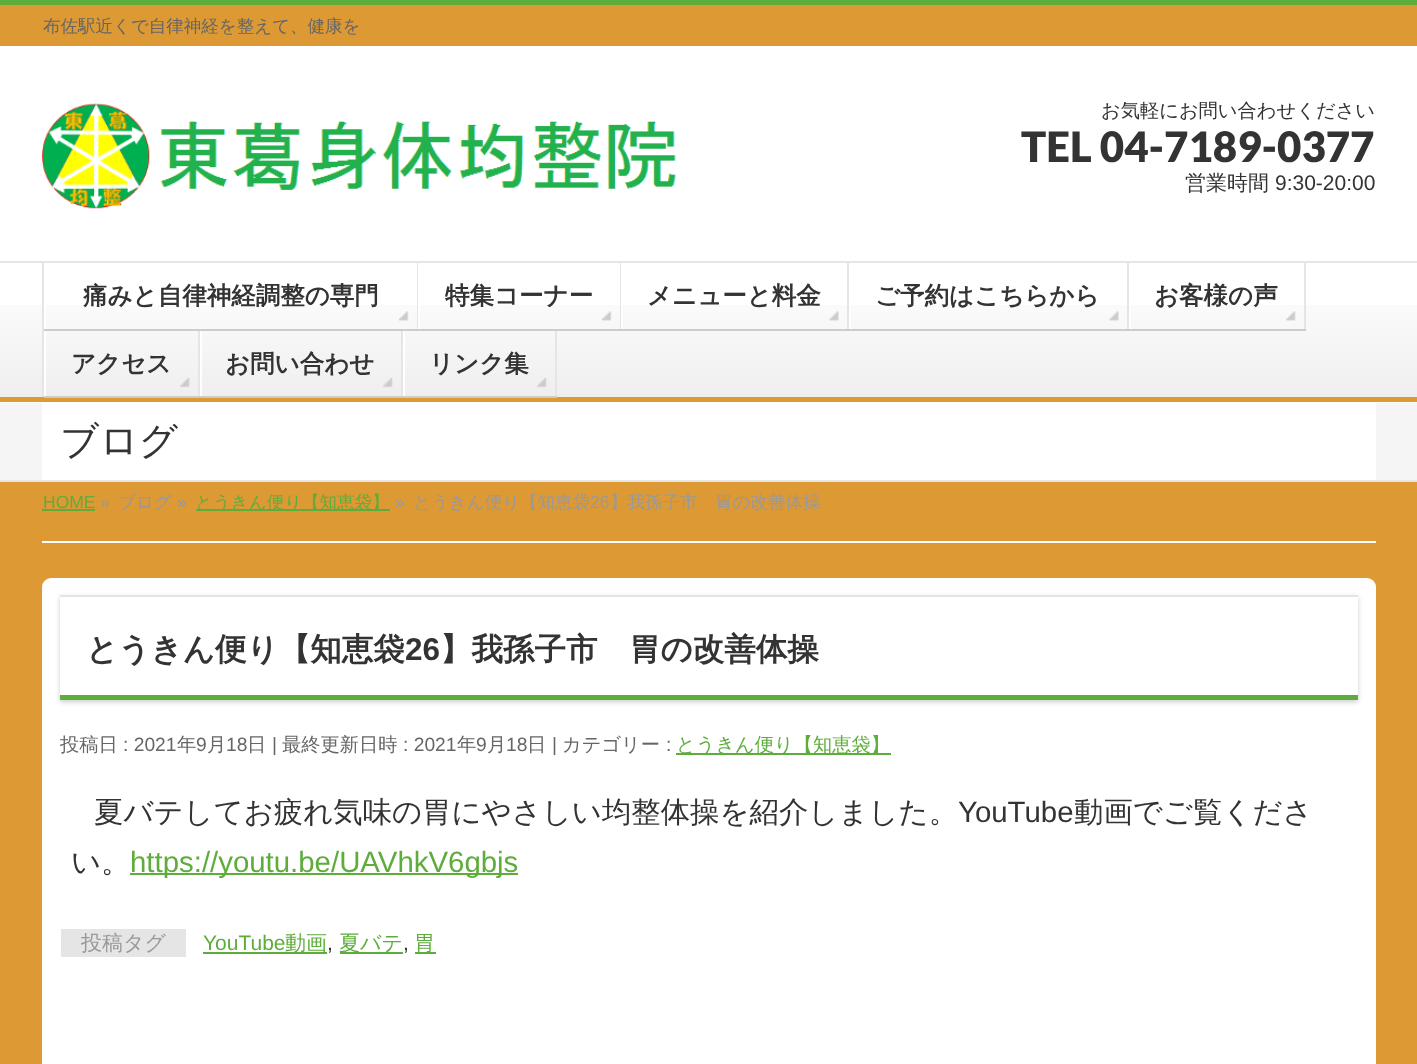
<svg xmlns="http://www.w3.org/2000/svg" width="1417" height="1064">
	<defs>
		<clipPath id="clip1"><path d="M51 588H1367V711H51ZM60 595H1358V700H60Z" clip-rule="evenodd" /></clipPath>
	</defs>
	<rect width="100%" height="100%" fill="#DD9933" />
	<rect x="0" y="0" width="1417" height="5" fill="#5EAD3C" />
	<text x="43" y="32" font-family="WenQuanYi Zen Hei" font-size="17.5" font-weight="500" fill="#666666">布佐駅近くで自律神経を整えて、健康を</text>
	<rect x="0" y="46" width="1417" height="215" fill="#FFFFFF" />
	<image x="42" y="103" width="634" height="106" href="assets/img1.png" />
	<text x="1101" y="117" font-family="WenQuanYi Zen Hei" font-size="19.25" font-weight="500" fill="#333333">お気軽にお問い合わせください</text>
	<text x="1021" y="162" font-family="Lato" font-size="42" font-weight="900" fill="#333333">TEL 04-7189-0377</text>
	<text x="1185" y="190" font-family="WenQuanYi Zen Hei" font-size="21" font-weight="500" fill="#333333">営業時間</text>
	<text x="1275" y="190" font-family="Liberation Sans" font-size="21" fill="#333333">9:30-20:00</text>
	<rect x="0" y="263" width="1417" height="140" fill="#FFFFFF" />
	<image x="0" y="305" width="1417" height="92" href="assets/img2.png" />
	<rect x="0" y="261" width="1417" height="2" fill="#E5E5E5" />
	<rect x="0" y="397" width="1417" height="5" fill="#DD9933" />
	<rect x="42" y="263" width="2" height="134" fill="#E5E5E5" />
	<rect x="44" y="305" width="2" height="92" fill="#FFFFFF" />
	<image x="399" y="311" width="10" height="10" href="assets/img3.png" />
	<rect x="417" y="263" width="1" height="68" fill="#E5E5E5" />
	<rect x="44" y="329" width="374" height="2" fill="#CCCCCC" />
	<text x="83" y="304" font-family="WenQuanYi Zen Hei" font-size="24.5" font-weight="700" fill="#333333">痛みと自律神経調整の専門</text>
	<rect x="418" y="305" width="2" height="26" fill="#FFFFFF" />
	<image x="602" y="311" width="10" height="10" href="assets/img4.png" />
	<rect x="620" y="263" width="1" height="68" fill="#E5E5E5" />
	<rect x="418" y="329" width="203" height="2" fill="#CCCCCC" />
	<text x="445" y="304" font-family="WenQuanYi Zen Hei" font-size="24.5" font-weight="700" fill="#333333">特集コーナー</text>
	<rect x="621" y="305" width="2" height="26" fill="#FFFFFF" />
	<image x="829" y="311" width="10" height="10" href="assets/img5.png" />
	<rect x="847" y="263" width="2" height="68" fill="#E5E5E5" />
	<rect x="621" y="329" width="228" height="2" fill="#CCCCCC" />
	<text x="647" y="304" font-family="WenQuanYi Zen Hei" font-size="24.5" font-weight="700" fill="#333333">メニューと料金</text>
	<rect x="849" y="305" width="2" height="26" fill="#FFFFFF" />
	<image x="1109" y="311" width="10" height="10" href="assets/img5.png" />
	<rect x="1127" y="263" width="2" height="68" fill="#E5E5E5" />
	<rect x="849" y="329" width="280" height="2" fill="#CCCCCC" />
	<text x="875" y="304" font-family="WenQuanYi Zen Hei" font-size="24.5" font-weight="700" fill="#333333">ご予約はこちらから</text>
	<rect x="1129" y="305" width="2" height="26" fill="#FFFFFF" />
	<image x="1286" y="311" width="10" height="10" href="assets/img6.png" />
	<rect x="1304" y="263" width="2" height="68" fill="#E5E5E5" />
	<rect x="1129" y="329" width="177" height="2" fill="#CCCCCC" />
	<text x="1154" y="304" font-family="WenQuanYi Zen Hei" font-size="24.5" font-weight="700" fill="#333333">お客様の声</text>
	<image x="180" y="378" width="10" height="10" href="assets/img7.png" />
	<rect x="198" y="331" width="2" height="66" fill="#E5E5E5" />
	<rect x="44" y="396" width="156" height="2" fill="#CCCCCC" />
	<text x="71" y="372" font-family="WenQuanYi Zen Hei" font-size="24.5" font-weight="700" fill="#333333">アクセス</text>
	<rect x="200" y="331" width="2" height="66" fill="#FFFFFF" />
	<image x="383" y="378" width="10" height="10" href="assets/img8.png" />
	<rect x="401" y="331" width="2" height="66" fill="#E5E5E5" />
	<rect x="200" y="396" width="203" height="2" fill="#CCCCCC" />
	<text x="225" y="372" font-family="WenQuanYi Zen Hei" font-size="24.5" font-weight="700" fill="#333333">お問い合わせ</text>
	<rect x="403" y="331" width="2" height="66" fill="#FFFFFF" />
	<image x="537" y="378" width="10" height="10" href="assets/img7.png" />
	<rect x="555" y="331" width="2" height="66" fill="#E5E5E5" />
	<rect x="403" y="396" width="154" height="2" fill="#CCCCCC" />
	<text x="429" y="372" font-family="WenQuanYi Zen Hei" font-size="24.5" font-weight="700" fill="#333333">リンク集</text>
	<rect x="0" y="403" width="1417" height="77" fill="#F5F5F5" />
	<rect x="0" y="480" width="1417" height="2" fill="#E5E5E5" />
	<rect x="42" y="403" width="1334" height="77" fill="#FFFFFF" />
	<text x="60" y="454" font-family="WenQuanYi Zen Hei" font-size="38.5" font-weight="500" fill="#333333">ブログ</text>
	<rect x="42" y="541" width="1334" height="2" fill="#FFFFFF" />
	<text x="43" y="508" font-family="Liberation Sans" font-size="17.5" fill="#5EAD3C">HOME</text>
	<rect x="42" y="509" width="53" height="2" fill="#5EAD3C" />
	<text x="100" y="508" font-family="Liberation Sans" font-size="17.5" fill="#999999">»</text>
	<text x="118" y="508" font-family="WenQuanYi Zen Hei" font-size="17.5" font-weight="500" fill="#999999">ブログ</text>
	<text x="177" y="508" font-family="Liberation Sans" font-size="17.5" fill="#999999">»</text>
	<rect x="196" y="509" width="194" height="2" fill="#5EAD3C" />
	<text x="195" y="508" font-family="WenQuanYi Zen Hei" font-size="17.5" font-weight="500" fill="#5EAD3C">とうきん便り【知恵袋】</text>
	<text x="395" y="508" font-family="Liberation Sans" font-size="17.5" fill="#999999">»</text>
	<text x="413" y="508" font-family="WenQuanYi Zen Hei" font-size="17.5" font-weight="500" fill="#999999">とうきん便り【知恵袋</text>
	<text x="590" y="508" font-family="Liberation Sans" font-size="17.5" fill="#999999">26</text>
	<text x="610" y="508" font-family="WenQuanYi Zen Hei" font-size="17.5" font-weight="500" fill="#999999">】我孫子市　胃の改善体操</text>
	<rect x="42" y="578" width="1334" height="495" rx="9" fill="#FFFFFF" />
	<g clip-path="url(#clip1)">
		<rect x="60" y="597" width="1298" height="105" fill="#000000" fill-opacity="0.2" filter="blur(2.5px)" />
	</g>
	<rect x="60" y="595" width="1298" height="2" fill="#E5E5E5" />
	<rect x="60" y="695" width="1298" height="5" fill="#5EAD3C" />
	<text x="86" y="660" font-family="WenQuanYi Zen Hei" font-size="31.5" font-weight="700" fill="#333333">とうきん便り【知恵袋</text>
	<text x="405" y="660" font-family="Liberation Sans" font-size="31.5" font-weight="700" fill="#333333">26</text>
	<text x="440" y="660" font-family="WenQuanYi Zen Hei" font-size="31.5" font-weight="700" fill="#333333">】我孫子市　胃の改善体操</text>
	<text x="60" y="751" font-family="WenQuanYi Zen Hei" font-size="19.25" font-weight="500" fill="#666666">投稿日</text>
	<text x="123" y="751" font-family="Liberation Sans" font-size="19.25" fill="#666666">: 2021</text>
	<text x="177" y="751" font-family="WenQuanYi Zen Hei" font-size="19.25" font-weight="500" fill="#666666">年</text>
	<text x="196" y="751" font-family="Liberation Sans" font-size="19.25" fill="#666666">9</text>
	<text x="207" y="751" font-family="WenQuanYi Zen Hei" font-size="19.25" font-weight="500" fill="#666666">月</text>
	<text x="226" y="751" font-family="Liberation Sans" font-size="19.25" fill="#666666">18</text>
	<text x="247" y="751" font-family="WenQuanYi Zen Hei" font-size="19.25" font-weight="500" fill="#666666">日</text>
	<text x="272" y="751" font-family="Liberation Sans" font-size="19.25" fill="#666666">|</text>
	<text x="282" y="751" font-family="WenQuanYi Zen Hei" font-size="19.25" font-weight="500" fill="#666666">最終更新日時</text>
	<text x="403" y="751" font-family="Liberation Sans" font-size="19.25" fill="#666666">: 2021</text>
	<text x="457" y="751" font-family="WenQuanYi Zen Hei" font-size="19.25" font-weight="500" fill="#666666">年</text>
	<text x="476" y="751" font-family="Liberation Sans" font-size="19.25" fill="#666666">9</text>
	<text x="487" y="751" font-family="WenQuanYi Zen Hei" font-size="19.25" font-weight="500" fill="#666666">月</text>
	<text x="506" y="751" font-family="Liberation Sans" font-size="19.25" fill="#666666">18</text>
	<text x="527" y="751" font-family="WenQuanYi Zen Hei" font-size="19.25" font-weight="500" fill="#666666">日</text>
	<text x="552" y="751" font-family="Liberation Sans" font-size="19.25" fill="#666666">|</text>
	<text x="562" y="751" font-family="WenQuanYi Zen Hei" font-size="19.25" font-weight="500" fill="#666666">カテゴリー</text>
	<text x="666" y="751" font-family="Liberation Sans" font-size="19.25" fill="#666666">:</text>
	<rect x="676" y="753" width="215" height="2" fill="#5EAD3C" />
	<text x="676" y="751" font-family="WenQuanYi Zen Hei" font-size="19.25" font-weight="500" fill="#5EAD3C">とうきん便り【知恵袋】</text>
	<text x="94" y="822" font-family="WenQuanYi Zen Hei" font-size="29.4" font-weight="500" fill="#333333">夏バテしてお疲れ気味の胃にやさしい均整体操を紹介しました。</text>
	<text x="958" y="822" font-family="Liberation Sans" font-size="29.4" fill="#333333">YouTube</text>
	<g font-family="WenQuanYi Zen Hei" font-size="29.4" font-weight="500" fill="#333333">
		<text x="1074" y="822">動画でご覧くださ</text>
		<text x="71" y="872">い。</text>
	</g>
	<rect x="130" y="873" width="388" height="2" fill="#5EAD3C" />
	<text x="130" y="872" font-family="Liberation Sans" font-size="29.4" fill="#5EAD3C">https://youtu.be/UAVhkV6gbjs</text>
	<rect x="61" y="929" width="125" height="28" fill="#E5E5E5" />
	<text x="81" y="950" font-family="WenQuanYi Zen Hei" font-size="21" font-weight="500" fill="#999999">投稿タグ</text>
	<text x="203" y="950" font-family="Liberation Sans" font-size="21" fill="#5EAD3C">YouTube</text>
	<rect x="203" y="952" width="124" height="2" fill="#5EAD3C" />
	<text x="285" y="950" font-family="WenQuanYi Zen Hei" font-size="21" font-weight="500" fill="#5EAD3C">動画</text>
	<text x="327" y="950" font-family="Liberation Sans" font-size="21" fill="#333333">,</text>
	<rect x="340" y="952" width="63" height="2" fill="#5EAD3C" />
	<text x="339" y="950" font-family="WenQuanYi Zen Hei" font-size="21" font-weight="500" fill="#5EAD3C">夏バテ</text>
	<text x="403" y="950" font-family="Liberation Sans" font-size="21" fill="#333333">,</text>
	<rect x="415" y="952" width="21" height="2" fill="#5EAD3C" />
	<text x="414" y="950" font-family="WenQuanYi Zen Hei" font-size="21" font-weight="500" fill="#5EAD3C">胃</text>
</svg>
